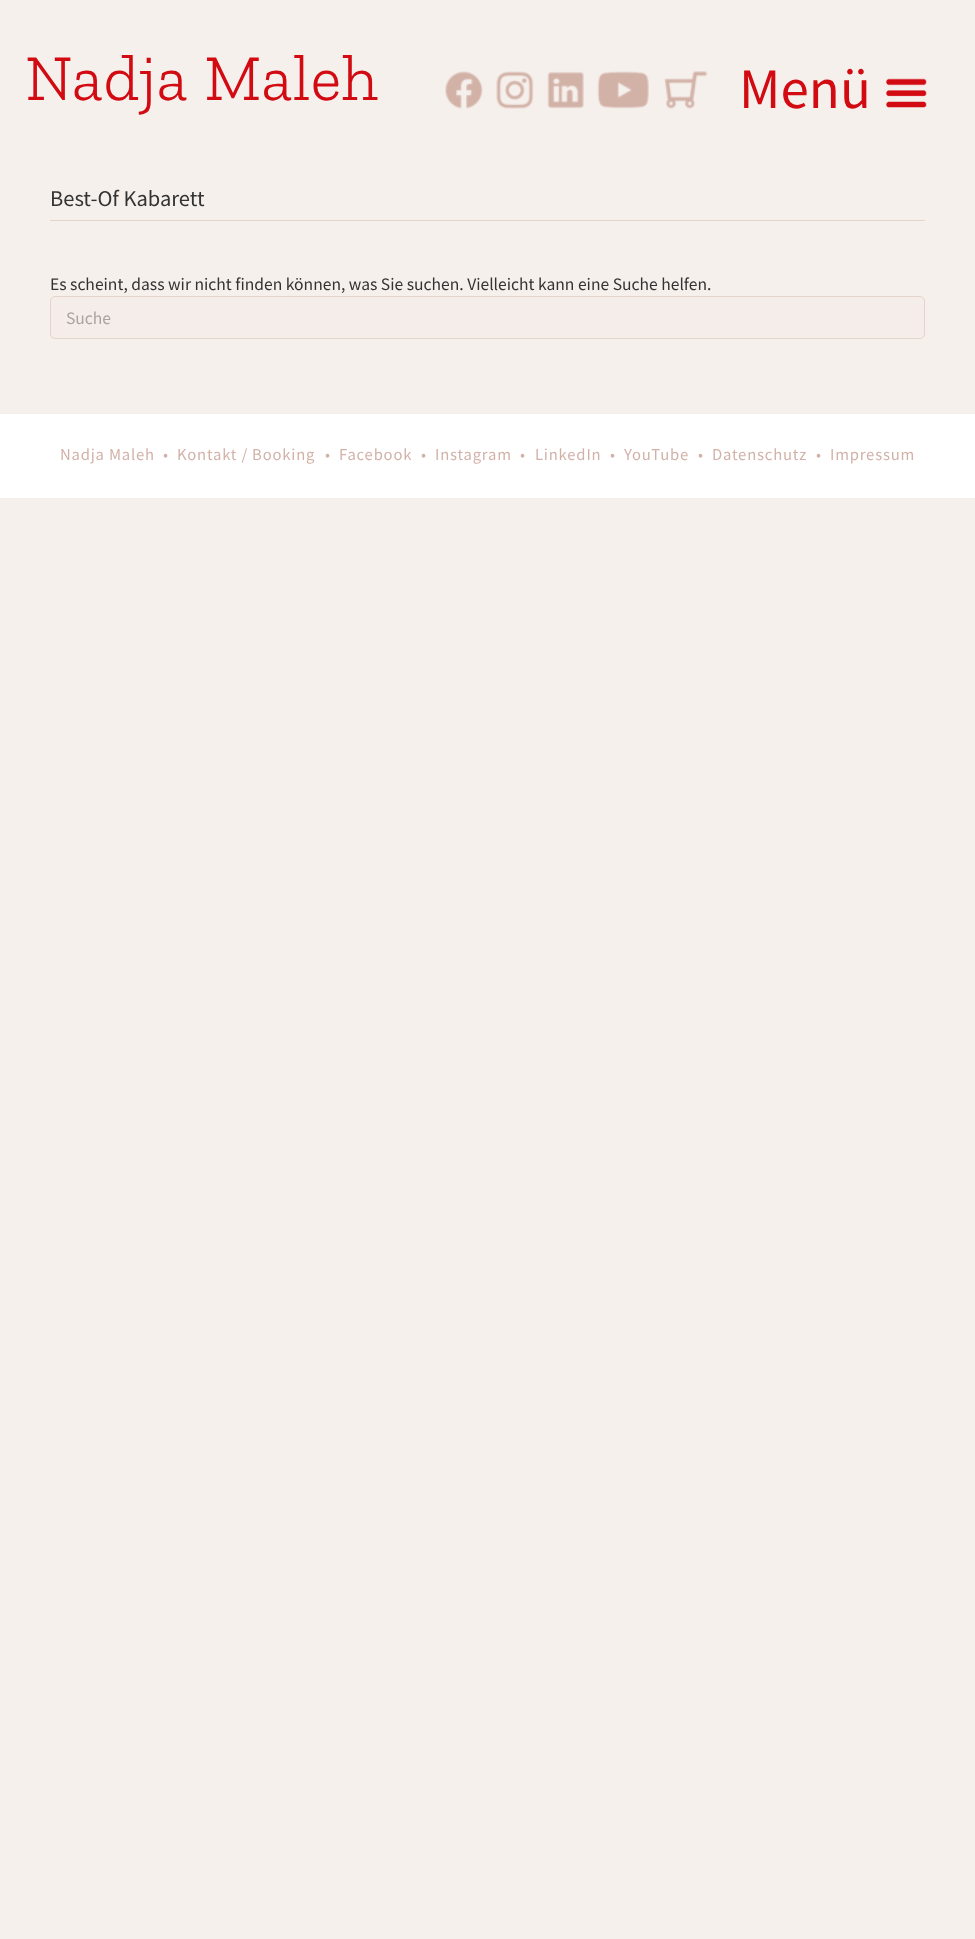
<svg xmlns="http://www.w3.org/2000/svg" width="975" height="1939">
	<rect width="100%" height="100%" fill="#F6F0ED" />
	<text x="25" y="100" font-family="Zilla Slab" font-size="65.25" font-weight="300" letter-spacing="0.6" fill="#D20A11">Nadja Maleh</text>
	<image x="445" y="71" width="38" height="38" href="assets/img1.png" />
	<image x="496" y="71" width="38" height="38" href="assets/img2.png" />
	<image x="547" y="71" width="37" height="38" href="assets/img3.png" />
	<image x="597" y="71" width="52" height="38" href="assets/img4.png" />
	<image x="664" y="71" width="44" height="38" href="assets/img5.png" />
	<text x="739" y="108" font-family="Source Sans Pro" font-size="57" fill="#D20A11">Menü</text>
	<image x="886" y="78" width="41" height="30" href="assets/img6.png" />
	<rect x="50" y="220" width="875" height="1" fill="#E5D4CB" />
	<text x="50" y="206" font-family="Source Sans Pro" font-size="22.5" fill="#333333">Best-Of Kabarett</text>
	<text x="50" y="290" font-family="Source Sans Pro" font-size="17.5" fill="#333333">Es scheint, dass wir nicht finden können, was Sie suchen. Vielleicht kann eine Suche helfen.</text>
	<rect x="50.5" y="296.5" width="874" height="42" rx="4.5" fill="#F4EDEA" stroke="#E5D4CB" />
	<text x="66" y="324" font-family="Source Sans Pro" font-size="17.5" fill="#A8A4A2">Suche</text>
	<rect x="0" y="414" width="975" height="84" fill="#FFFFFF" />
	<g font-family="Source Sans Pro" font-size="16.6" letter-spacing="0.8" fill="#D2B2A8">
		<text x="60" y="460" xml:space="preserve">Nadja Maleh  •</text>
		<text x="177" y="460">Kontakt / Booking</text>
		<text x="325" y="460">•</text>
		<text x="339" y="460">Facebook</text>
		<text x="421" y="460">•</text>
		<text x="435" y="460">Instagram</text>
		<text x="520" y="460">•</text>
		<text x="535" y="460">LinkedIn</text>
		<text x="610" y="460">•</text>
		<text x="624" y="460">YouTube</text>
		<text x="698" y="460">•</text>
		<text x="712" y="460">Datenschutz</text>
		<text x="816" y="460">•</text>
		<text x="830" y="460">Impressum</text>
	</g>
</svg>
